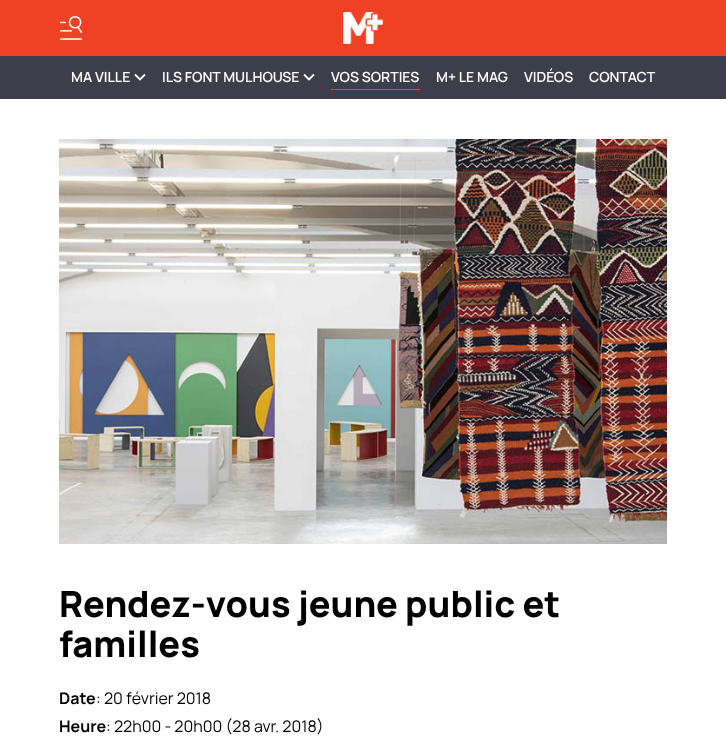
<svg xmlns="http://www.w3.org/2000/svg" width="726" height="754">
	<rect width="100%" height="100%" fill="#FFFFFF" />
	<rect x="0" y="0" width="726" height="56" fill="#F04124" />
	<image x="59" y="16" width="24" height="24" href="assets/img1.png" />
	<image x="343" y="12" width="40" height="32" href="assets/img2.png" />
	<rect x="0" y="56" width="726" height="43" fill="#3E3D4A" />
	<text x="71" y="82" font-family="Manrope" font-size="14" font-weight="600" fill="#FFFFFF">MA VILLE</text>
	<path d="M135 74.5L140 79.5L145 74.5" fill="none" stroke="#FFFFFF" stroke-width="1.8" />
	<text x="162" y="82" font-family="Manrope" font-size="14" font-weight="600" fill="#FFFFFF">ILS FONT MULHOUSE</text>
	<path d="M304 74.5L309 79.5L314 74.5" fill="none" stroke="#FFFFFF" stroke-width="1.8" />
	<rect x="331" y="89" width="89" height="1" fill="#F04124" />
	<g font-family="Manrope" font-size="14" font-weight="600" fill="#FFFFFF">
		<text x="331" y="82">VOS SORTIES</text>
		<text x="436" y="82">M+ LE MAG</text>
		<text x="524" y="82">VIDÉOS</text>
		<text x="589" y="82">CONTACT</text>
	</g>
	<image x="59" y="139" width="608" height="405" href="assets/img3.png" />
	<g font-family="Manrope" font-size="36" font-weight="800" fill="#000000">
		<text x="59" y="617">Rendez-vous jeune public et</text>
		<text x="59" y="657">familles</text>
	</g>
	<text x="59" y="704" font-family="Manrope" font-size="16" font-weight="700" fill="#000000">Date</text>
	<text x="96" y="704" font-family="Manrope" font-size="16" fill="#000000">: 20 février 2018</text>
	<text x="59" y="732" font-family="Manrope" font-size="16" font-weight="700" fill="#000000">Heure</text>
	<text x="106" y="732" font-family="Manrope" font-size="16" fill="#000000">: 22h00 - 20h00 (28 avr. 2018)</text>
</svg>
